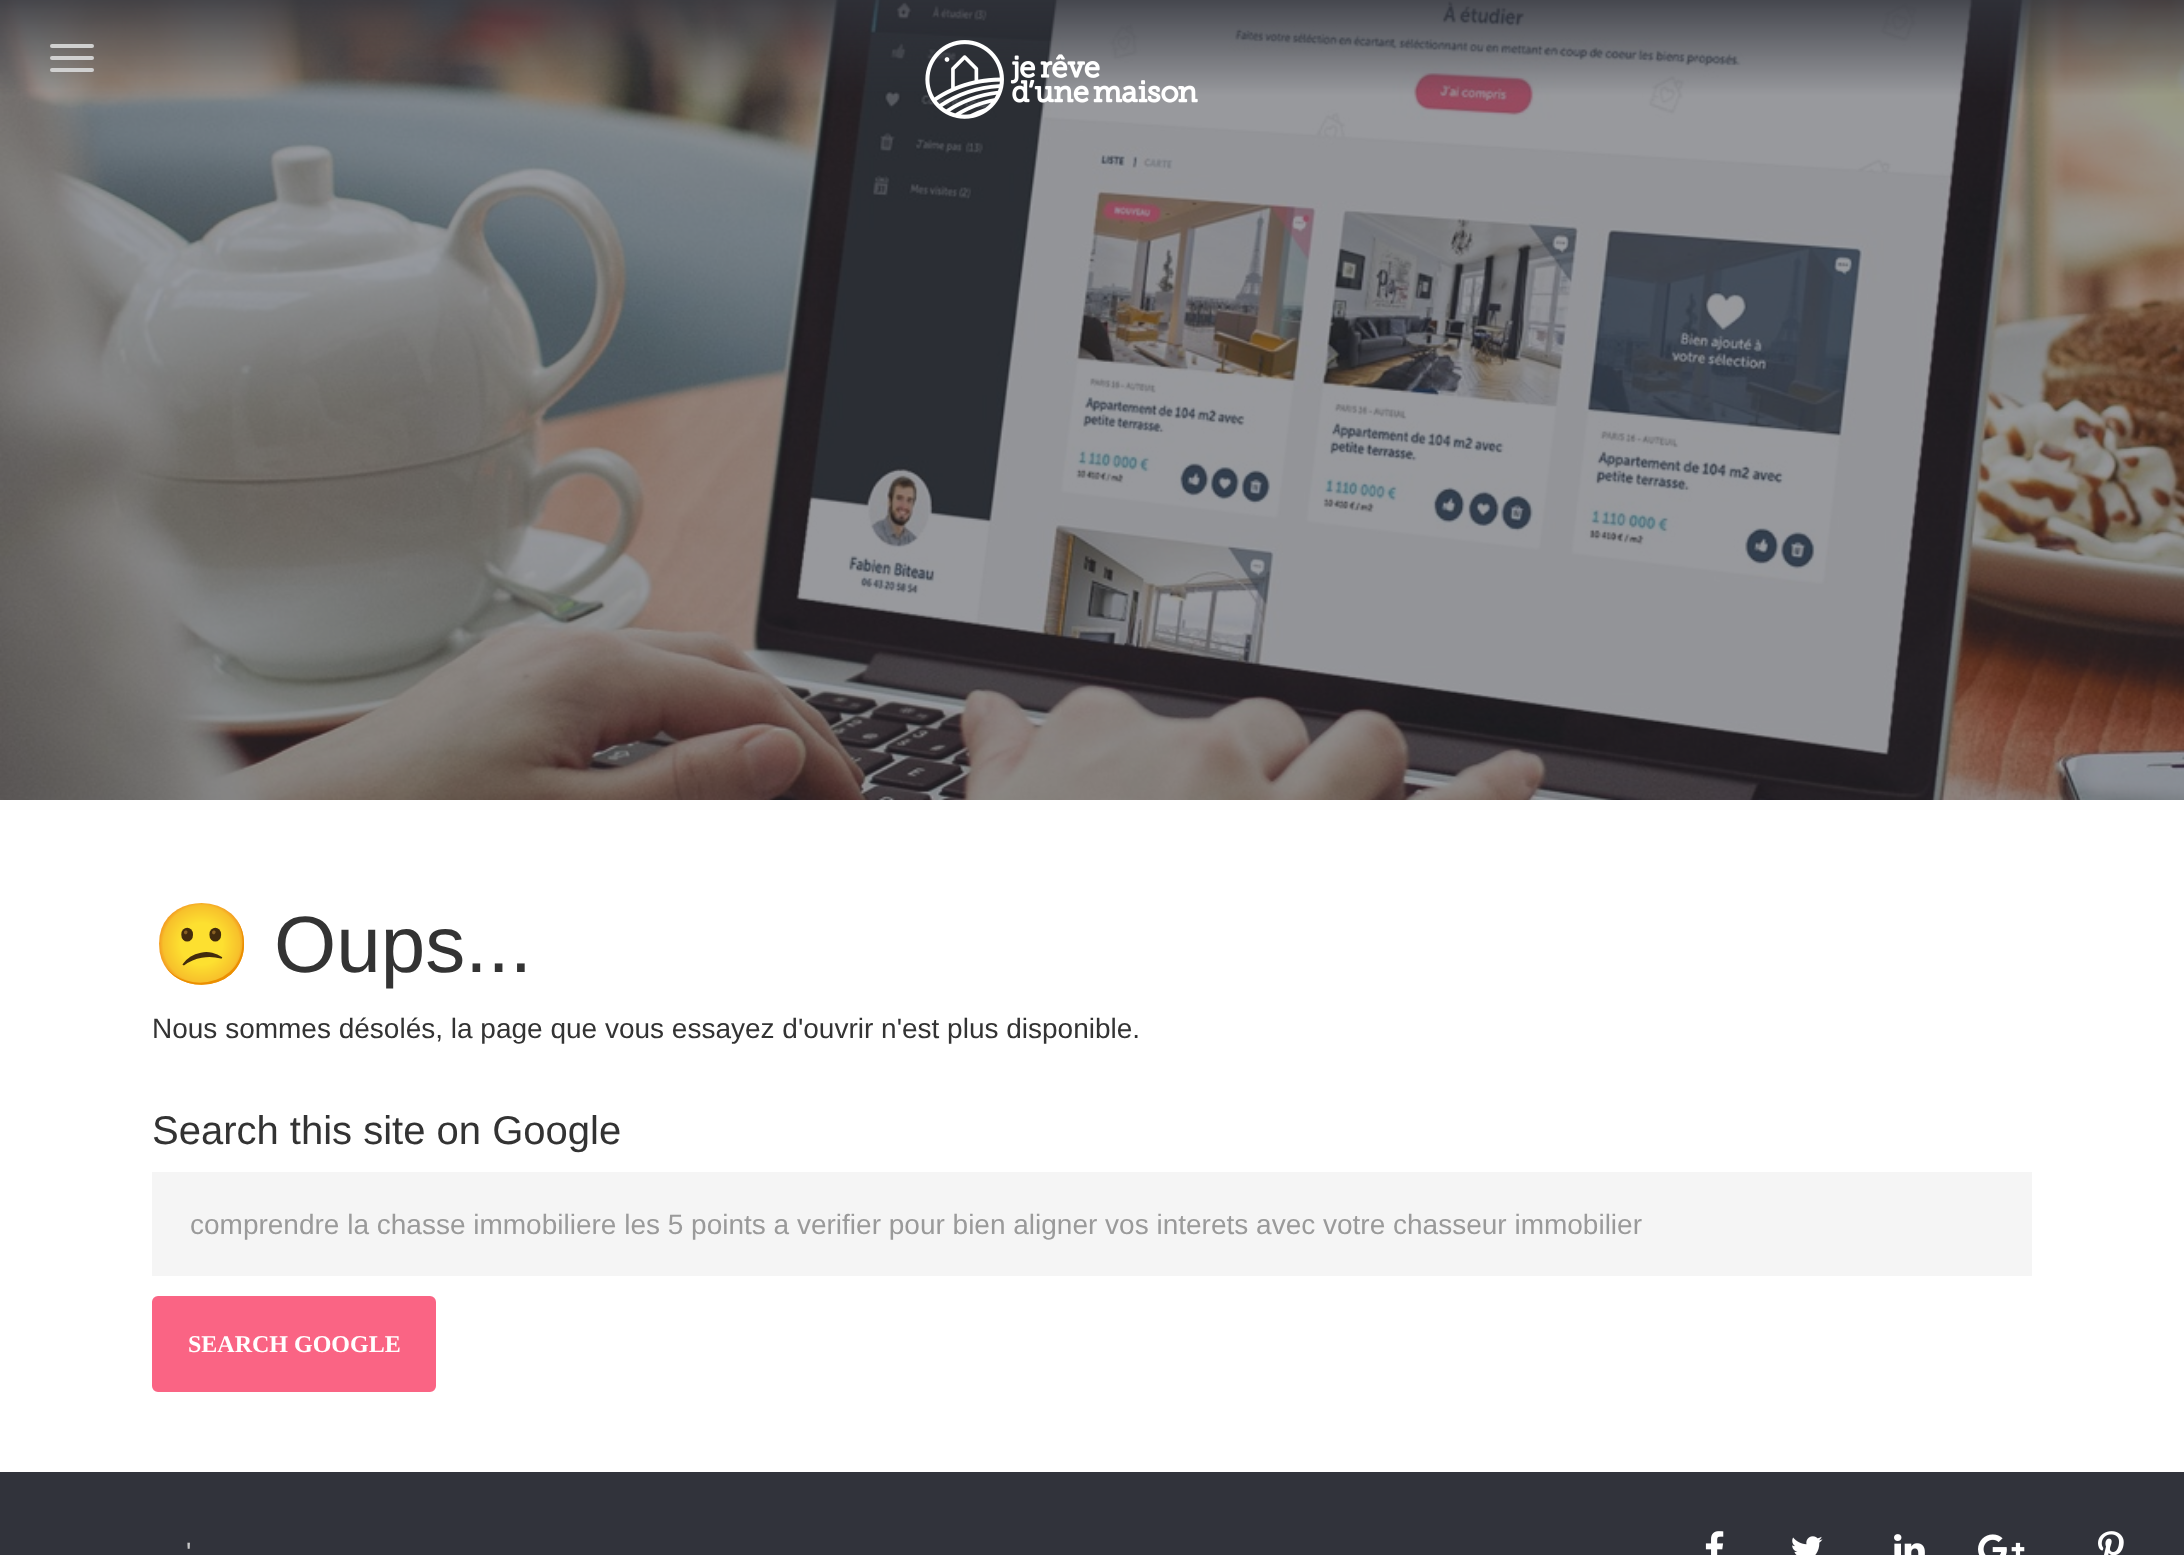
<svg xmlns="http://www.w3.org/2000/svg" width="2184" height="1555">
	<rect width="100%" height="100%" fill="#FFFFFF" />
	<image x="0" y="0" width="2184" height="800" href="assets/img1.png" />
	<rect x="50" y="44" width="44" height="4" rx="2" fill="#D0D0D0" />
	<rect x="50" y="56" width="44" height="4" rx="2" fill="#D0D0D0" />
	<rect x="50" y="68" width="44" height="4" rx="2" fill="#D0D0D0" />
	<image x="925" y="40" width="273" height="79" href="assets/img2.png" />
	<text x="152" y="972" font-family="Noto Color Emoji" font-size="80" fill="#333333">😕</text>
	<text x="274" y="972" font-family="Liberation Sans" font-size="80" fill="#333333">Oups...</text>
	<text x="152" y="1038" font-family="Liberation Sans" font-size="28" fill="#333333">Nous sommes désolés, la page que vous essayez d'ouvrir n'est plus disponible.</text>
	<text x="152" y="1144" font-family="Liberation Sans" font-size="40" fill="#333333">Search this site on Google</text>
	<rect x="152" y="1172" width="1880" height="104" fill="#F5F5F5" />
	<text x="190" y="1234" font-family="Liberation Sans" font-size="28" fill="#9A9A9A">comprendre la chasse immobiliere les 5 points a verifier pour bien aligner vos interets avec votre chasseur immobilier</text>
	<rect x="154" y="1298" width="280" height="92" rx="4" fill="#FA6484" stroke="#FA6484" stroke-width="4" />
	<text x="188" y="1352" font-family="Liberation Serif" font-size="24" font-weight="700" fill="#FFFFFF">SEARCH GOOGLE</text>
	<rect x="0" y="1472" width="2184" height="83" fill="#31333B" />
	<text x="186" y="1562" font-family="Liberation Sans" font-size="28" fill="#C8C8C8">'</text>
	<image x="1705" y="1531" width="19" height="24" href="assets/img3.png" />
	<image x="1792" y="1536" width="31" height="19" href="assets/img4.png" />
	<image x="1894" y="1534" width="31" height="21" href="assets/img5.png" />
	<image x="1978" y="1534" width="47" height="21" href="assets/img6.png" />
	<image x="2098" y="1531" width="26" height="24" href="assets/img7.png" />
</svg>
